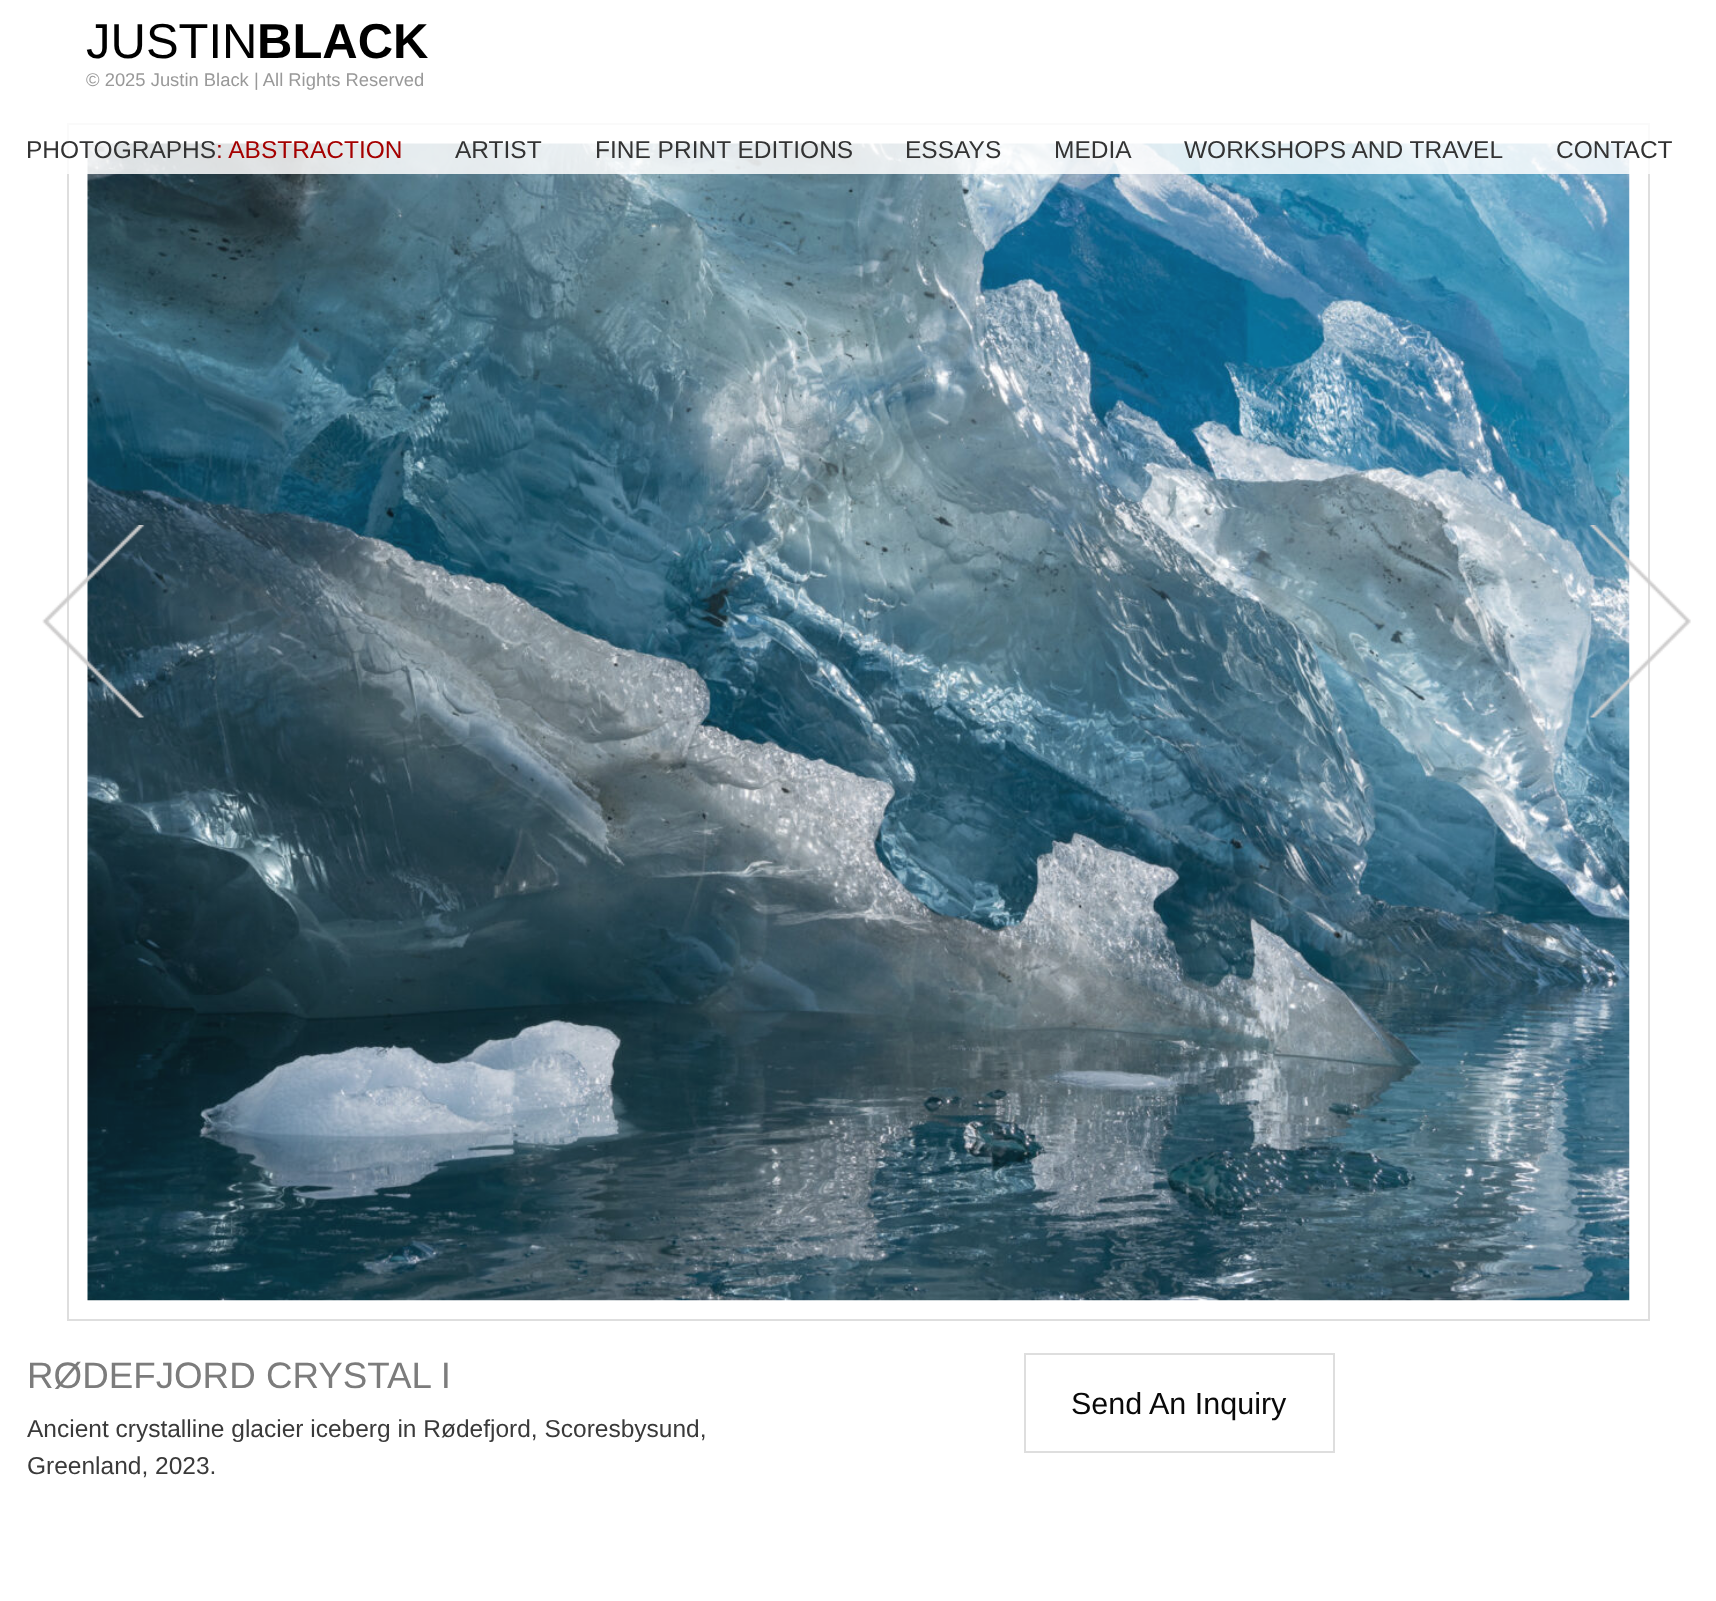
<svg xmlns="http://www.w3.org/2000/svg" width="1716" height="1601">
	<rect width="100%" height="100%" fill="#FFFFFF" />
	<rect x="68" y="124" width="1581" height="1196" fill="none" stroke="#DEDEDE" stroke-width="2" />
	<image x="87" y="143" width="1543" height="1158" href="assets/img3.png" />
	<rect x="67" y="123" width="1583" height="51" fill="#FFFFFF" fill-opacity="0.85" />
	<text x="86" y="58" font-family="Liberation Sans" font-size="49" fill="#000000">JUSTIN</text>
	<text x="257" y="58" font-family="Liberation Sans" font-size="49" font-weight="700" fill="#000000">BLACK</text>
	<text x="86" y="86" font-family="Liberation Sans" font-size="18.4" fill="#999999">© 2025 Justin Black | All Rights Reserved</text>
	<text x="26" y="158" font-family="Liberation Sans" font-size="24.5" fill="#333333">PHOTOGRAPHS</text>
	<text x="216" y="158" font-family="Liberation Sans" font-size="24.5" fill="#A50000">: ABSTRACTION</text>
	<g font-family="Liberation Sans" font-size="24.5" fill="#333333">
		<text x="455" y="158">ARTIST</text>
		<text x="595" y="158">FINE PRINT EDITIONS</text>
		<text x="905" y="158">ESSAYS</text>
		<text x="1054" y="158">MEDIA</text>
		<text x="1184" y="158">WORKSHOPS AND TRAVEL</text>
		<text x="1556" y="158">CONTACT</text>
	</g>
	<image x="42" y="525" width="103" height="193" href="assets/img1.png" />
	<image x="1588" y="525" width="103" height="193" href="assets/img2.png" />
	<text x="27" y="1388" font-family="Liberation Sans" font-size="36.75" fill="#7C7C7C">RØDEFJORD CRYSTAL I</text>
	<g font-family="Liberation Sans" font-size="24.5" fill="#3A3A3A">
		<text x="27" y="1437">Ancient crystalline glacier iceberg in Rødefjord, Scoresbysund,</text>
		<text x="27" y="1474">Greenland, 2023.</text>
	</g>
	<rect x="1025" y="1354" width="309" height="98" fill="none" stroke="#DEDEDE" stroke-width="2" />
	<text x="1071" y="1414" font-family="Liberation Sans" font-size="30.5" fill="#090909">Send An Inquiry</text>
</svg>
